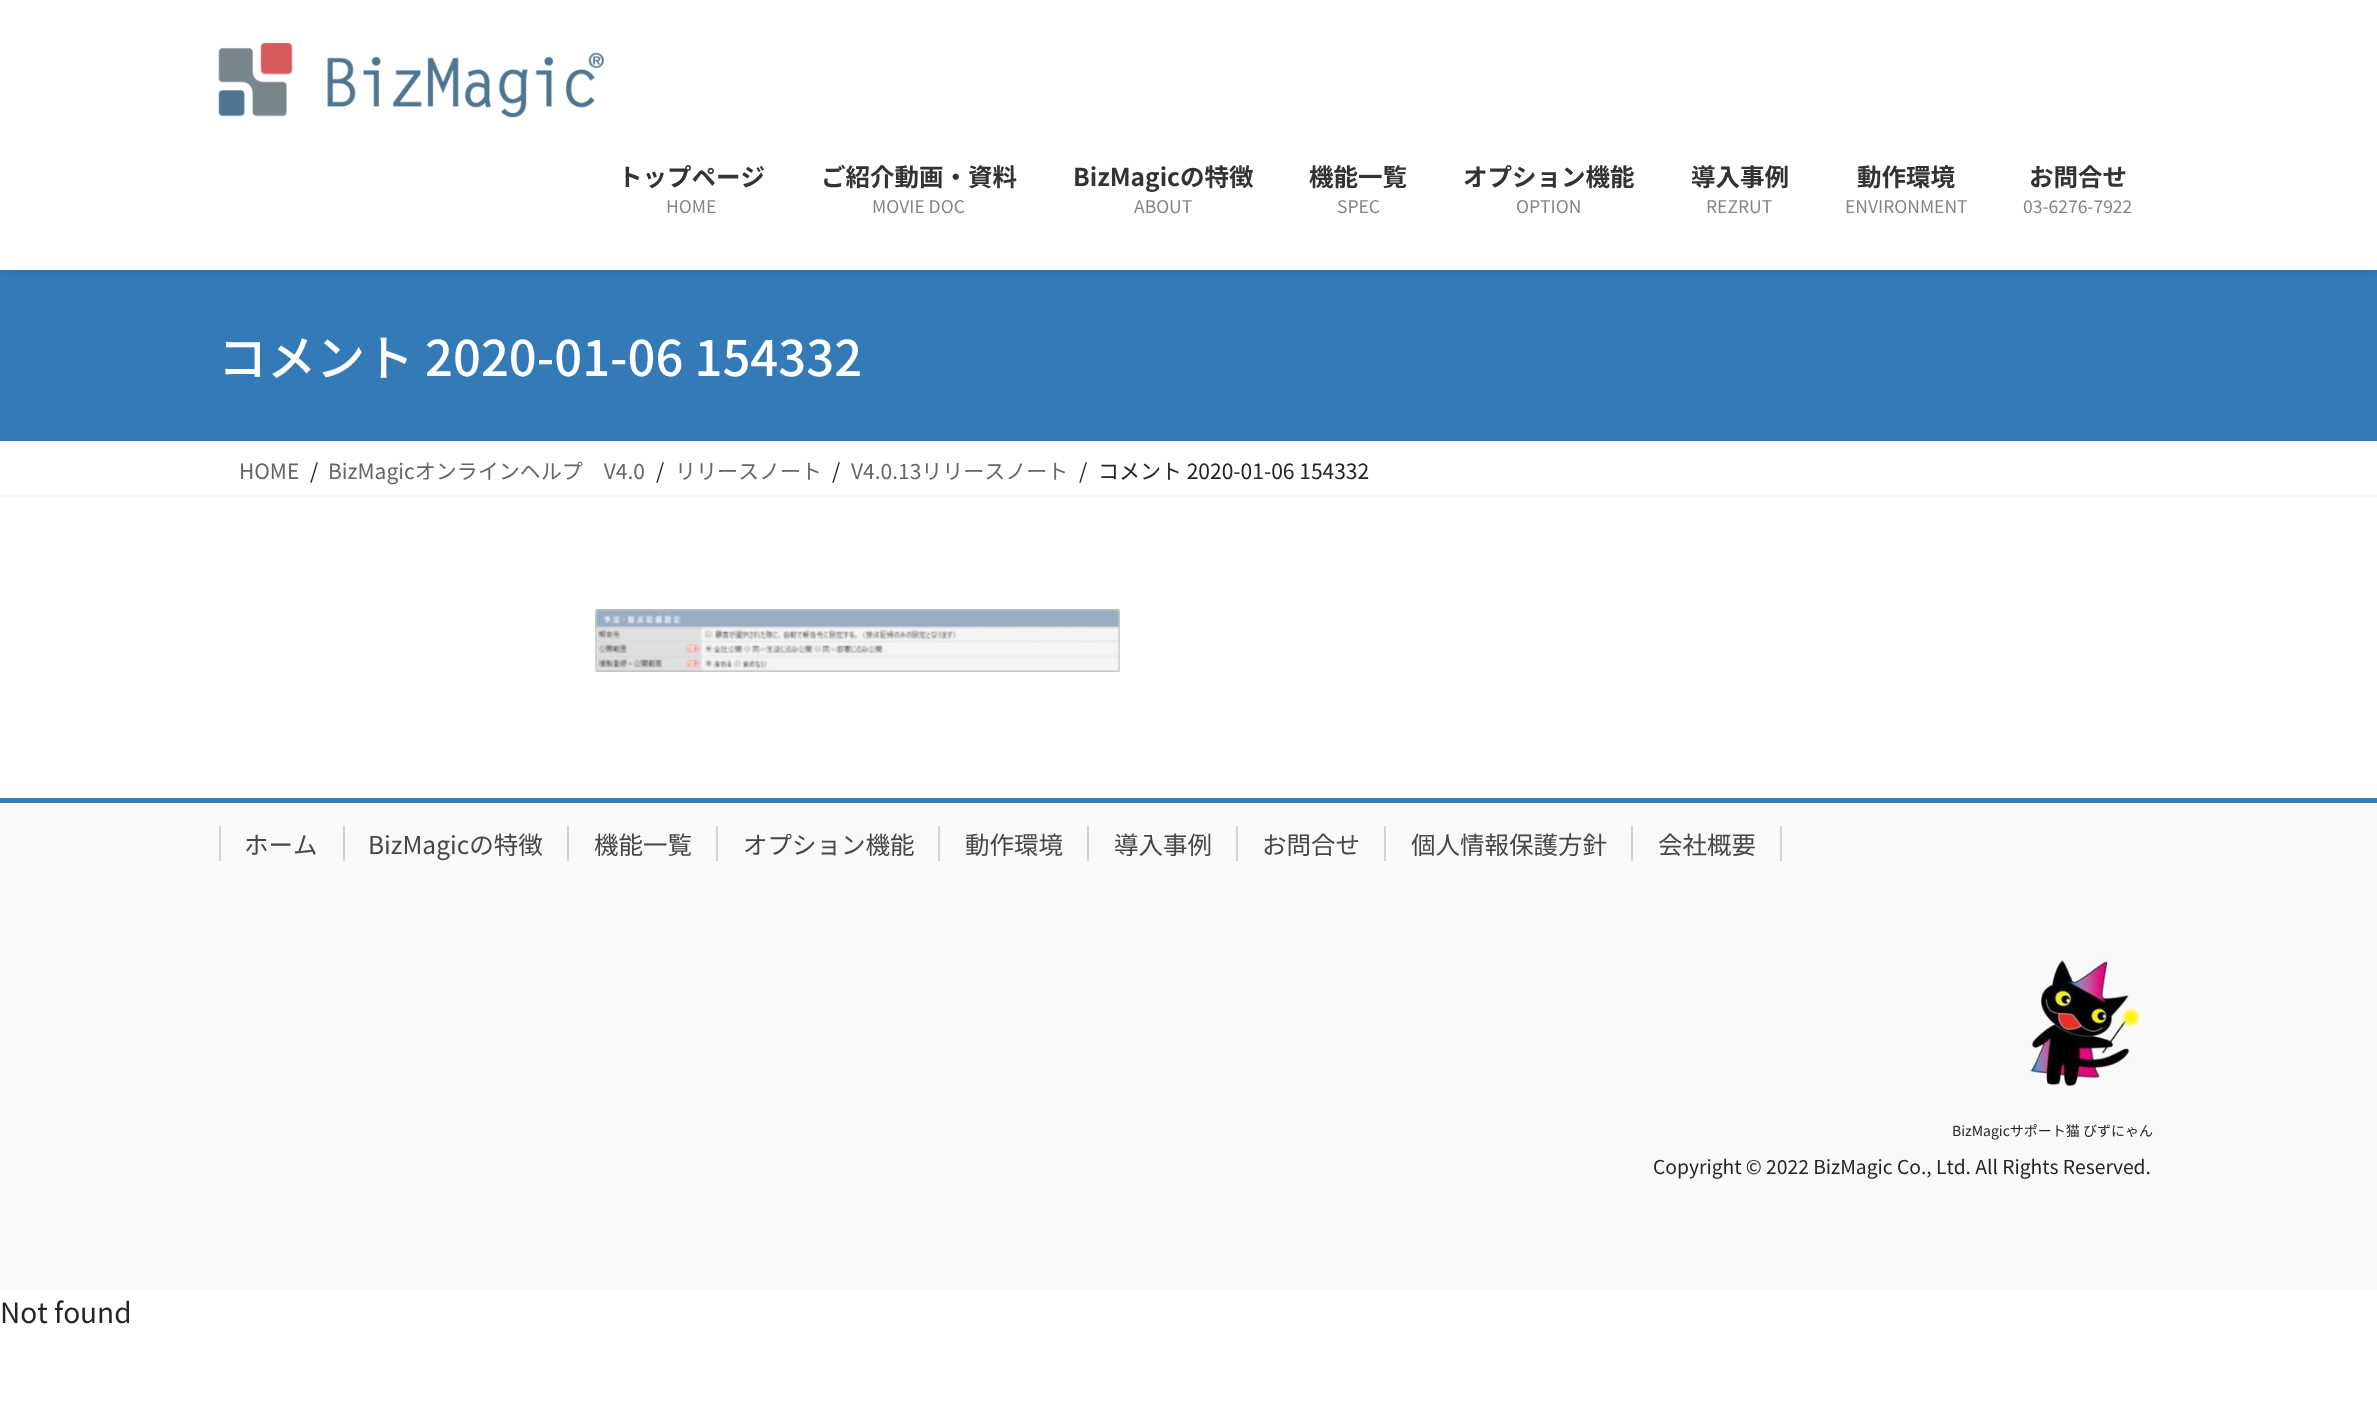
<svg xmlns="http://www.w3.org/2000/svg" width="2377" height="1428">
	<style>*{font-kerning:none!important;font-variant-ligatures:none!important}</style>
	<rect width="100%" height="100%" fill="#FFFFFF" />
	<rect x="0" y="270" width="2377" height="171" fill="#337AB7" />
	<rect x="0" y="2" width="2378" height="269" fill="#000000" fill-opacity="0.1" filter="blur(2.5px)" />
	<rect x="0" y="0" width="2377" height="270" fill="#FFFFFF" />
	<image x="218" y="42" width="386" height="76" href="assets/img1.png" />
	<text x="618" y="186" font-family="Noto Sans JP" font-size="24.5" font-weight="700" fill="#333333">トップページ</text>
	<text x="666" y="213" font-family="Noto Sans JP" font-size="17.5" fill="#858585">HOME</text>
	<text x="821" y="186" font-family="Noto Sans JP" font-size="24.5" font-weight="700" fill="#333333">ご紹介動画・資料</text>
	<text x="872" y="213" font-family="Noto Sans JP" font-size="17.5" fill="#858585">MOVIE DOC</text>
	<text x="1073" y="186" font-family="Noto Sans JP" font-size="24.5" font-weight="700" fill="#333333">BizMagicの特徴</text>
	<text x="1134" y="213" font-family="Noto Sans JP" font-size="17.5" fill="#858585">ABOUT</text>
	<text x="1309" y="186" font-family="Noto Sans JP" font-size="24.5" font-weight="700" fill="#333333">機能一覧</text>
	<text x="1337" y="213" font-family="Noto Sans JP" font-size="17.5" fill="#858585">SPEC</text>
	<text x="1463" y="186" font-family="Noto Sans JP" font-size="24.5" font-weight="700" fill="#333333">オプション機能</text>
	<text x="1516" y="213" font-family="Noto Sans JP" font-size="17.5" fill="#858585">OPTION</text>
	<text x="1691" y="186" font-family="Noto Sans JP" font-size="24.5" font-weight="700" fill="#333333">導入事例</text>
	<text x="1706" y="213" font-family="Noto Sans JP" font-size="17.5" fill="#858585">REZRUT</text>
	<text x="1857" y="186" font-family="Noto Sans JP" font-size="24.5" font-weight="700" fill="#333333">動作環境</text>
	<text x="1845" y="213" font-family="Noto Sans JP" font-size="17.5" fill="#858585">ENVIRONMENT</text>
	<text x="2029" y="186" font-family="Noto Sans JP" font-size="24.5" font-weight="700" fill="#333333">お問合せ</text>
	<text x="2023" y="213" font-family="Noto Sans JP" font-size="17.5" fill="#858585">03-6276-7922</text>
	<text x="218" y="376" font-family="Noto Sans JP" font-size="49" font-weight="500" fill="#FFFFFF">コメント 2020-01-06 154332</text>
	<rect x="0" y="495" width="2377" height="2" fill="#F2F2F2" />
	<text x="239" y="479" font-family="Noto Sans JP" font-size="21" fill="#666666">HOME</text>
	<text x="310" y="479" font-family="Noto Sans JP" font-size="21" fill="#212529">/</text>
	<text x="328" y="479" font-family="Noto Sans JP" font-size="21" fill="#666666">BizMagicオンラインヘルプ　V4.0</text>
	<text x="656" y="479" font-family="Noto Sans JP" font-size="21" fill="#212529">/</text>
	<text x="675" y="479" font-family="Noto Sans JP" font-size="21" fill="#666666">リリースノート</text>
	<text x="832" y="479" font-family="Noto Sans JP" font-size="21" fill="#212529">/</text>
	<text x="851" y="479" font-family="Noto Sans JP" font-size="21" fill="#666666">V4.0.13リリースノート</text>
	<g font-family="Noto Sans JP" font-size="21" fill="#212529">
		<text x="1079" y="479">/</text>
		<text x="1098" y="479">コメント 2020-01-06 154332</text>
	</g>
	<image x="595" y="609" width="525" height="63" href="assets/img2.png" />
	<rect x="0" y="803" width="2377" height="487" fill="#F9F9F9" />
	<rect x="0" y="798" width="2377" height="5" fill="#337AB7" />
	<text x="244" y="854" font-family="Noto Sans JP" font-size="24.5" fill="#464646">ホーム</text>
	<rect x="219" y="826" width="2" height="35" fill="#D4D4D4" />
	<text x="368" y="854" font-family="Noto Sans JP" font-size="24.5" fill="#464646">BizMagicの特徴</text>
	<rect x="343" y="826" width="2" height="35" fill="#D4D4D4" />
	<text x="594" y="854" font-family="Noto Sans JP" font-size="24.5" fill="#464646">機能一覧</text>
	<rect x="567" y="826" width="2" height="35" fill="#D4D4D4" />
	<text x="743" y="854" font-family="Noto Sans JP" font-size="24.5" fill="#464646">オプション機能</text>
	<rect x="716" y="826" width="2" height="35" fill="#D4D4D4" />
	<text x="965" y="854" font-family="Noto Sans JP" font-size="24.5" fill="#464646">動作環境</text>
	<rect x="938" y="826" width="2" height="35" fill="#D4D4D4" />
	<text x="1114" y="854" font-family="Noto Sans JP" font-size="24.5" fill="#464646">導入事例</text>
	<rect x="1087" y="826" width="2" height="35" fill="#D4D4D4" />
	<text x="1262" y="854" font-family="Noto Sans JP" font-size="24.5" fill="#464646">お問合せ</text>
	<rect x="1236" y="826" width="2" height="35" fill="#D4D4D4" />
	<text x="1411" y="854" font-family="Noto Sans JP" font-size="24.5" fill="#464646">個人情報保護方針</text>
	<rect x="1384" y="826" width="2" height="35" fill="#D4D4D4" />
	<text x="1658" y="854" font-family="Noto Sans JP" font-size="24.5" fill="#464646">会社概要</text>
	<rect x="1780" y="826" width="2" height="35" fill="#D4D4D4" />
	<rect x="1631" y="826" width="2" height="35" fill="#D4D4D4" />
	<image x="2030" y="959" width="111" height="127" href="assets/img3.png" />
	<text x="1952" y="1136" font-family="Noto Sans JP" font-size="14" fill="#212529">BizMagicサポート猫 びずにゃん</text>
	<text x="1653" y="1174" font-family="Noto Sans JP" font-size="19.25" fill="#212529">Copyright © 2022 BizMagic Co., Ltd. All Rights Reserved.</text>
	<text x="0" y="1323" font-family="Noto Sans JP" font-size="28" fill="#212529">Not found</text>
</svg>
